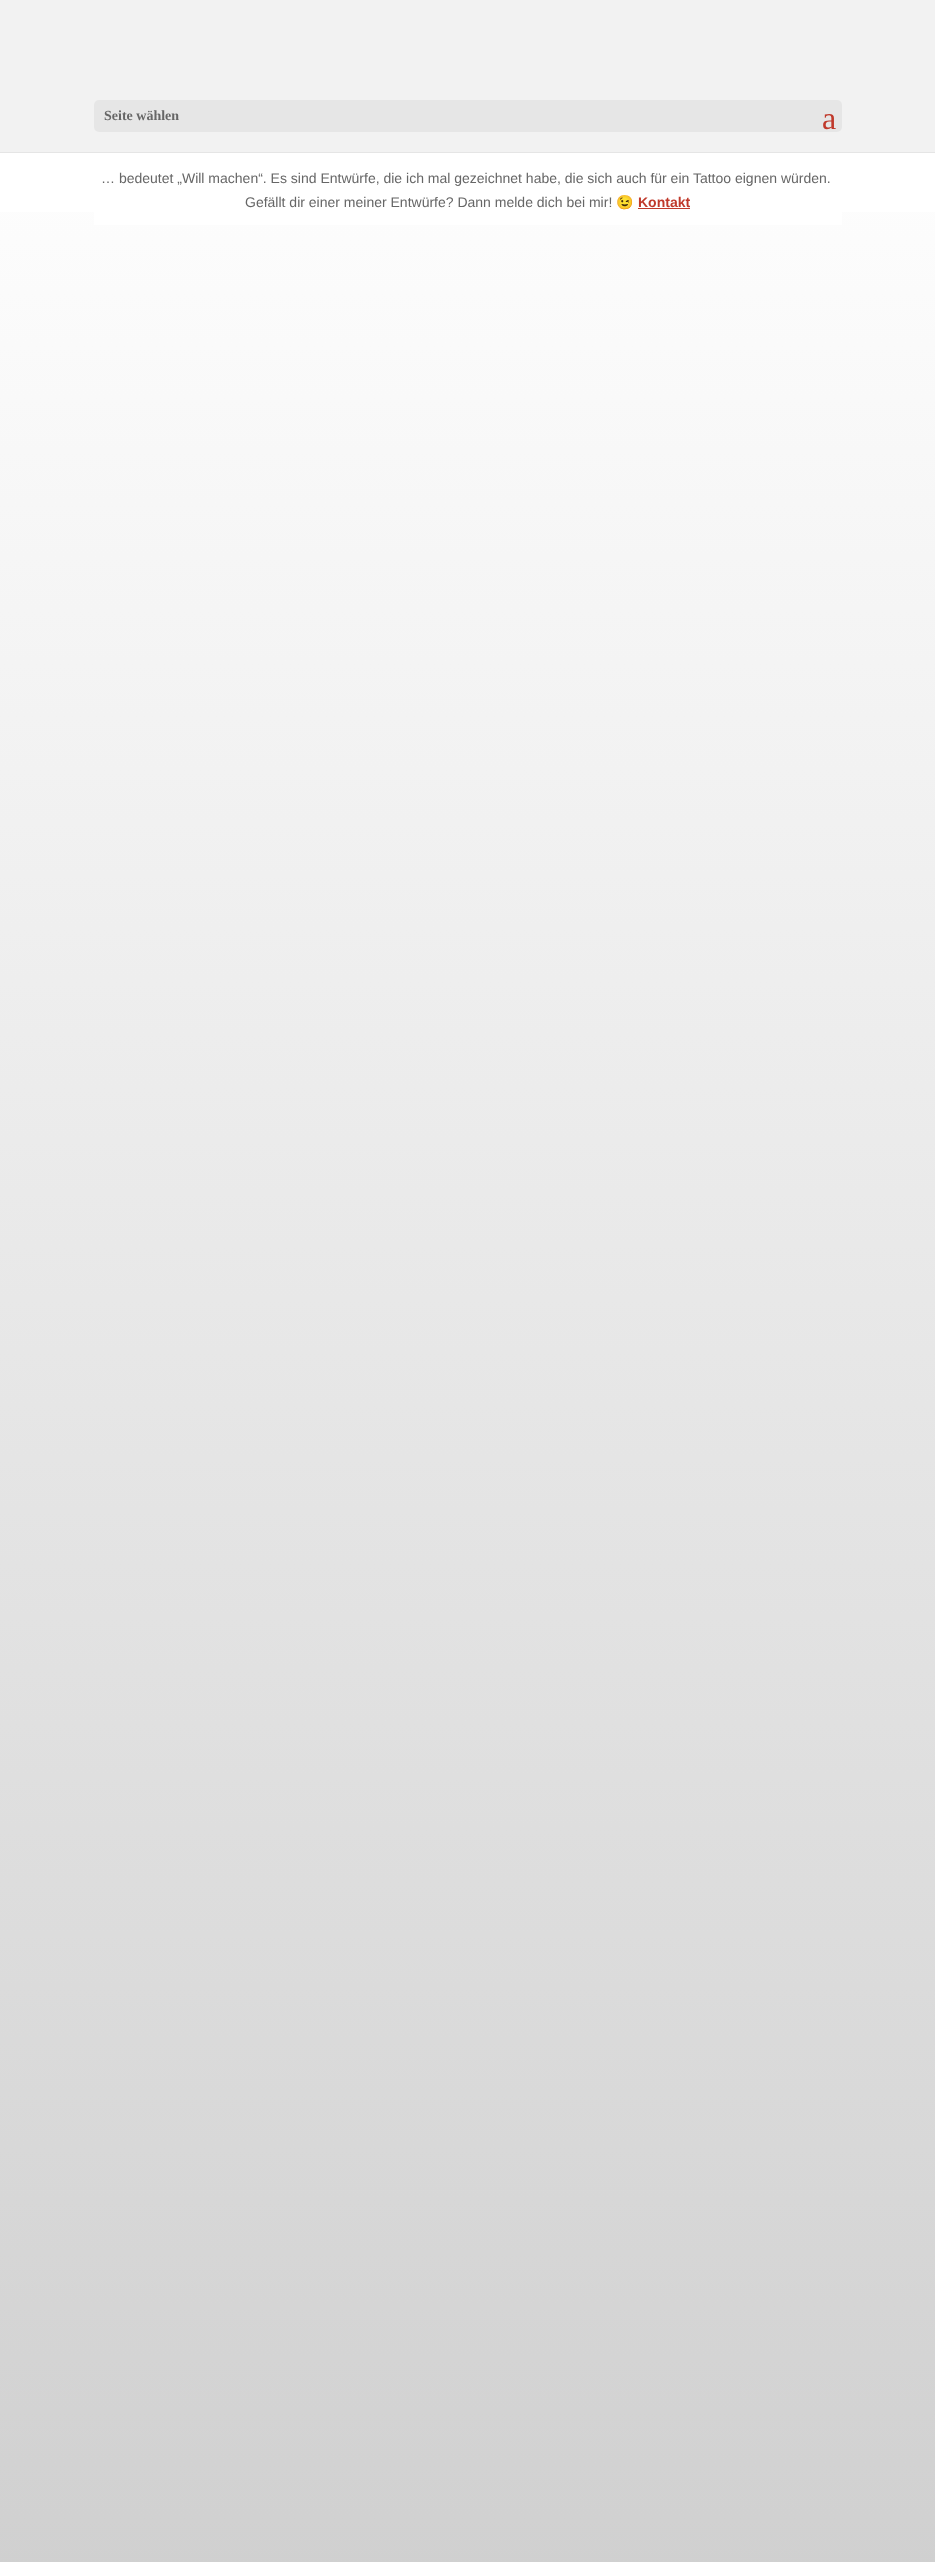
<svg xmlns="http://www.w3.org/2000/svg" width="935" height="2562">
	<defs>
		<linearGradient id="g1" gradientUnits="userSpaceOnUse" x1="467" y1="80" x2="468" y2="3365"><stop offset="0" stop-color="#FFFFFF" /><stop offset="1" stop-color="#C1C1C1" /></linearGradient>
	</defs>
	<rect width="100%" height="100%" fill="#FFFFFF" />
	<rect x="0" y="152" width="935" height="1" fill="#000000" fill-opacity="0.1" />
	<rect x="0" y="0" width="935" height="152" fill="#F2F2F2" />
	<rect x="94" y="100" width="748" height="32" rx="5" fill="#E6E6E6" />
	<text x="104" y="120" font-family="Liberation Serif" font-size="14" font-weight="700" fill="#666666">Seite wählen</text>
	<text x="822" y="129" font-family="Liberation Serif" font-size="32" fill="#C0392B">a</text>
	<rect x="0" y="212" width="935" height="2350" fill="url(#g1)" />
	<rect x="94" y="212" width="748" height="13" fill="#FFFFFF" />
	<g font-family="Liberation Sans" font-size="14" fill="#666666">
		<text x="101" y="183">… bedeutet „Will machen“. Es sind Entwürfe, die ich mal gezeichnet habe, die sich auch für ein Tattoo eignen würden.</text>
		<text x="245" y="207">Gefällt dir einer meiner Entwürfe? Dann melde dich bei mir!</text>
	</g>
	<text x="616" y="207" font-family="Noto Color Emoji" font-size="14" fill="#666666">😉</text>
	<text x="638" y="207" font-family="Liberation Sans" font-size="14" font-weight="700" fill="#C0392B">Kontakt</text>
	<rect x="638" y="208" width="52" height="1" fill="#C0392B" />
</svg>
